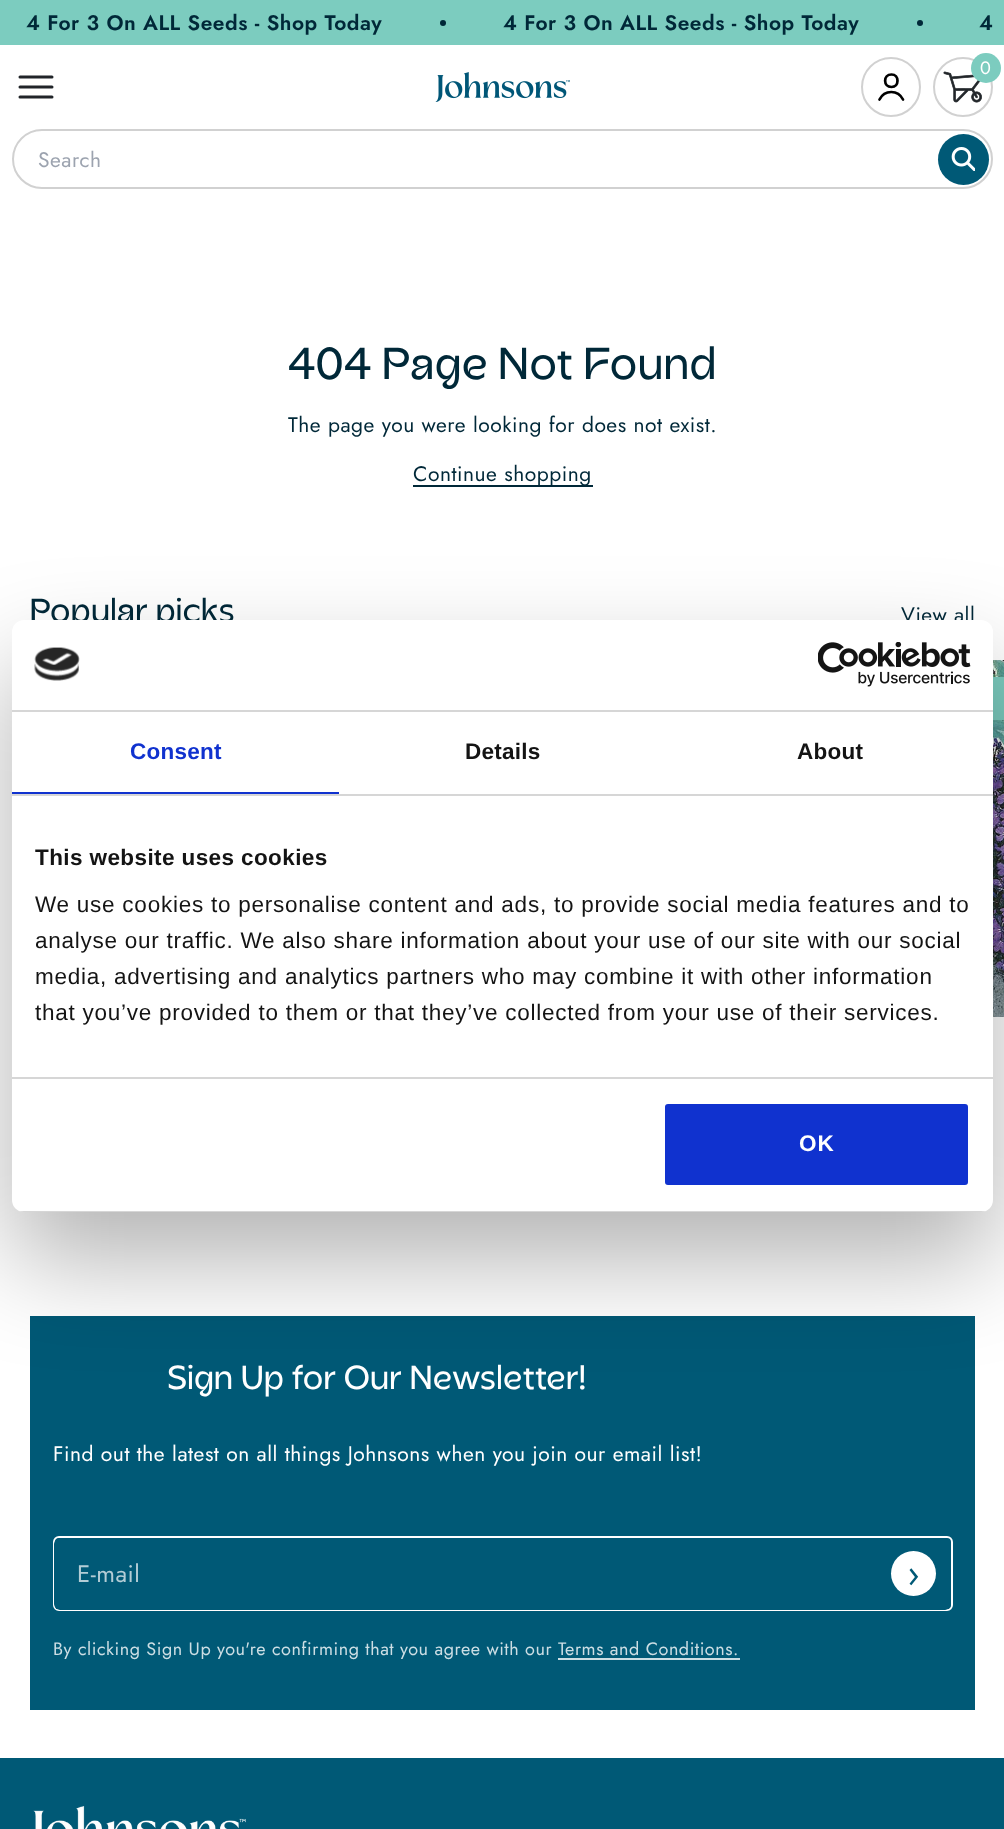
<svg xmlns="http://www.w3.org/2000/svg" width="1004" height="1829">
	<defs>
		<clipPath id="clip1"><rect x="54" y="1538" width="897" height="72" rx="5" /></clipPath>
		<clipPath id="clip2"><rect x="12" y="620" width="981" height="592" rx="12" /></clipPath>
	</defs>
	<rect width="100%" height="100%" fill="#FFFFFF" />
	<rect x="0" y="0" width="1004" height="45" fill="#7CCCBF" />
	<text x="26" y="30" font-family="Jost" font-size="21" font-weight="600" letter-spacing="0.52" fill="#002838">4 For 3 On ALL Seeds - Shop Today</text>
	<circle cx="443" cy="23" r="3" fill="#002838" />
	<text x="503" y="30" font-family="Jost" font-size="21" font-weight="600" letter-spacing="0.52" fill="#002838">4 For 3 On ALL Seeds - Shop Today</text>
	<circle cx="920" cy="23" r="3" fill="#002838" />
	<text x="979" y="30" font-family="Jost" font-size="21" font-weight="600" letter-spacing="0.52" fill="#002838">4</text>
	<circle cx="891" cy="87" r="29" fill="none" stroke="#D1D1D1" stroke-width="2" />
	<path d="M891.5 87C899.5 87 899.5 74.5 891.5 74.5C883 74.5 883 87 891.5 87Z" fill="none" stroke="#000000" stroke-width="2.7" />
	<path d="M879.5 99.5C884.5 89.5 898 89.5 903 99.5" fill="none" stroke="#000000" stroke-width="2.7" stroke-linecap="round" />
	<circle cx="963" cy="87" r="29" fill="none" stroke="#D1D1D1" stroke-width="2" />
	<image x="943" y="71" width="39" height="32" href="assets/img1.png" />
	<circle cx="986" cy="68" r="15" fill="#7CCCBF" />
	<text x="980" y="74" font-family="Jost" font-size="18" letter-spacing="0.52" fill="#FFFFFF">0</text>
	<path d="M20 77H52M20 87H52M20 97H52" fill="none" stroke="#212529" stroke-width="3" stroke-linecap="round" stroke-linejoin="round" />
	<image x="435" y="72" width="135" height="30" href="assets/img2.png" />
	<rect x="13" y="130" width="979" height="58" rx="29" fill="none" stroke="#D1D1D1" stroke-width="2" />
	<text x="38" y="167" font-family="Jost" font-size="21" letter-spacing="0.52" fill="#9CA3AF">Search</text>
	<circle cx="963.5" cy="159.5" r="25.5" fill="#005976" />
	<image x="951" y="147" width="24" height="24" href="assets/img3.png" />
	<text x="288" y="379" font-family="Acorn" font-size="44.6" letter-spacing="1.1" fill="#002838">404 Page Not Found</text>
	<text x="288" y="432" font-family="Jost" font-size="21" letter-spacing="0.52" fill="#002838">The page you were looking for does not exist.</text>
	<rect x="413" y="485" width="180" height="2" fill="#002838" />
	<text x="413" y="481" font-family="Jost" font-size="21" letter-spacing="0.52" fill="#002838">Continue shopping</text>
	<text x="30" y="622" font-family="Acorn" font-size="33.1" letter-spacing="0.8" fill="#002838">Popular picks</text>
	<text x="901" y="622" font-family="Jost" font-size="21" letter-spacing="0.52" fill="#002838">View all</text>
	<image x="993" y="660" width="11" height="357" href="assets/img4.png" />
	<rect x="993" y="677" width="11" height="43" fill="#7CCCBF" />
	<rect x="30" y="1316" width="945" height="394" fill="#005976" />
	<text x="168" y="1389" font-family="Acorn" font-size="33.1" letter-spacing="0.8" fill="#FFFFFF">Sign Up for Our Newsletter!</text>
	<text x="53" y="1461" font-family="Jost" font-size="21" letter-spacing="0.52" fill="#FFFFFF">Find out the latest on all things Johnsons when you join our email list!</text>
	<rect x="54" y="1537" width="898" height="73" rx="5" fill="none" stroke="#FFFFFF" stroke-width="2" />
	<g clip-path="url(#clip1)">
		<rect x="54" y="1538" width="897" height="72" rx="6" fill="#005976" />
	</g>
	<text x="77" y="1582" font-family="Jost" font-size="24" letter-spacing="0.5" fill="#B3CDD6">E-mail</text>
	<circle cx="913.5" cy="1573.5" r="22.5" fill="#FFFFFF" />
	<text x="907" y="1586" font-family="Jost" font-size="36" letter-spacing="0.52" fill="#005976">›</text>
	<text x="53" y="1655" font-family="Jost" font-size="18" letter-spacing="0.52" fill="#CCDEE4">By clicking Sign Up you're confirming that you agree with our Terms and Conditions.</text>
	<rect x="558" y="1658" width="182" height="2" fill="#CCDEE4" />
	<rect x="0" y="1758" width="1004" height="71" fill="#005976" />
	<image x="33" y="1806" width="213" height="23" href="assets/img5.png" />
	<rect x="12" y="668" width="981" height="592" rx="12" fill="#000000" fill-opacity="0.3" filter="blur(51px)" />
	<rect x="12" y="620" width="981" height="592" rx="12" fill="#FFFFFF" />
	<rect x="12" y="710" width="981" height="2" fill="#D6D6D6" />
	<image x="34" y="647" width="46" height="34" href="assets/img6.png" />
	<image x="818" y="642" width="153" height="45" href="assets/img7.png" />
	<rect x="12" y="794" width="981" height="2" fill="#D6D6D6" />
	<rect x="12" y="792" width="327" height="2" fill="#1032CF" />
	<text x="130" y="759" font-family="Liberation Sans" font-size="22.5" font-weight="700" letter-spacing="0.25" fill="#1032CF">Consent</text>
	<g font-family="Liberation Sans" font-size="22.5" font-weight="700" letter-spacing="0.25" fill="#141414">
		<text x="465" y="759">Details</text>
		<text x="797" y="759">About</text>
	</g>
	<rect x="12" y="1077" width="981" height="2" fill="#D6D6D6" />
	<text x="35" y="865" font-family="Liberation Sans" font-size="22.5" font-weight="700" letter-spacing="0.4" fill="#141414">This website uses cookies</text>
	<g font-family="Liberation Sans" font-size="22.5" letter-spacing="0.75" fill="#141414">
		<text x="35" y="912">We use cookies to personalise content and ads, to provide social media features and to</text>
		<text x="35" y="948">analyse our traffic. We also share information about your use of our site with our social</text>
		<text x="35" y="984">media, advertising and analytics partners who may combine it with other information</text>
		<text x="35" y="1020">that you’ve provided to them or that they’ve collected from your use of their services.</text>
	</g>
	<g clip-path="url(#clip2)">
		<rect x="12" y="1211" width="981" height="1" fill="#D6D6D6" />
	</g>
	<rect x="663.5" y="1102.5" width="306" height="84" rx="4.5" fill="#1032CF" stroke="#FFFFFF" stroke-width="3" />
	<text x="799" y="1151" font-family="Liberation Sans" font-size="22.5" font-weight="700" letter-spacing="1" fill="#FFFFFF">OK</text>
</svg>
